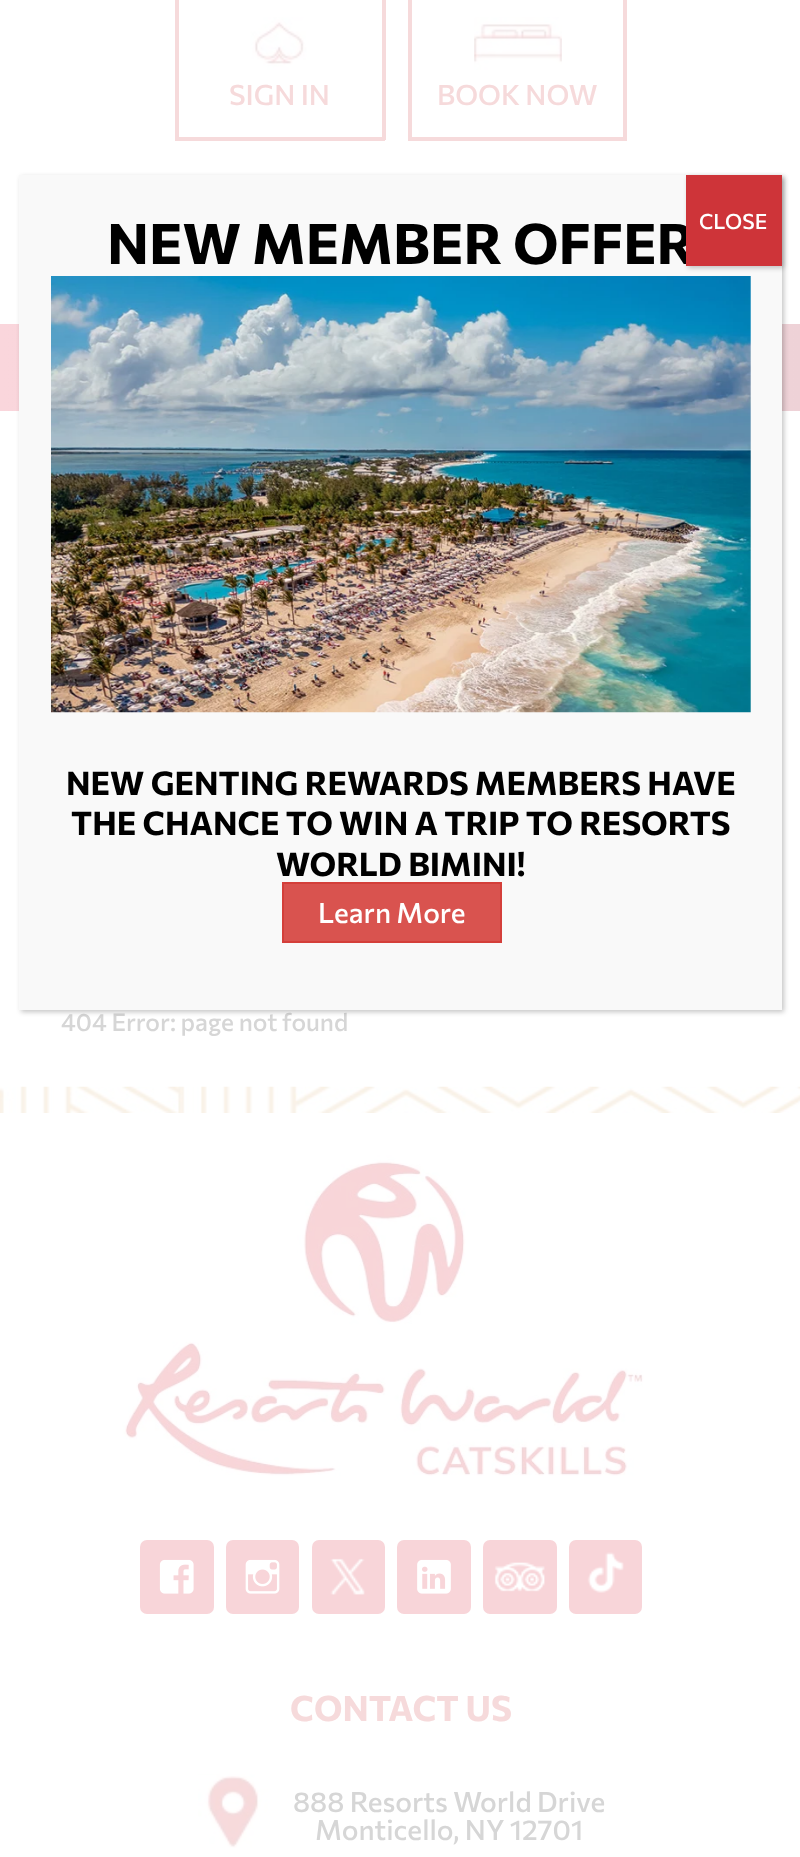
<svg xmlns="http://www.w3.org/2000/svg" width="800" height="1857">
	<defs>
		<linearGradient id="g1" gradientUnits="userSpaceOnUse" x1="0" y1="368" x2="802" y2="368"><stop offset="0" stop-color="#FAD6DC" /><stop offset="1" stop-color="#EED2D7" /></linearGradient>
	</defs>
	<rect width="100%" height="100%" fill="#FFFFFF" />
	<rect x="382" y="0" width="4" height="140" fill="#F6DADB" />
	<rect x="175" y="137" width="210" height="4" fill="#F6DADB" />
	<rect x="175" y="0" width="4" height="140" fill="#F6DADB" />
	<image x="250" y="17" width="57" height="53" href="assets/img1.png" />
	<text x="229" y="105" font-family="Commissioner" font-size="28" font-weight="500" fill="#F6DADB">SIGN IN</text>
	<rect x="623" y="0" width="4" height="140" fill="#F6DADB" />
	<rect x="408" y="137" width="219" height="4" fill="#F6DADB" />
	<rect x="408" y="0" width="4" height="140" fill="#F6DADB" />
	<image x="474" y="17" width="88" height="53" href="assets/img2.png" />
	<text x="437" y="105" font-family="Commissioner" font-size="28" font-weight="500" fill="#F6DADB">BOOK NOW</text>
	<rect x="0" y="324" width="800" height="87" fill="url(#g1)" />
	<text x="61" y="1031" font-family="Commissioner" font-size="24.5" font-weight="500" fill="#D6D6D6">404 Error: page not found</text>
	<image x="0" y="1086" width="800" height="27" href="assets/img3.png" />
	<image x="122" y="1155" width="522" height="321" href="assets/img4.png" />
	<rect x="140" y="1540" width="74" height="74" rx="7" fill="#F8D5D9" />
	<image x="159" y="1559" width="35" height="35" href="assets/img5.png" />
	<rect x="226" y="1540" width="73" height="74" rx="7" fill="#F8D5D9" />
	<image x="245" y="1559" width="35" height="35" href="assets/img6.png" />
	<rect x="312" y="1540" width="73" height="74" rx="7" fill="#F8D5D9" />
	<image x="330" y="1558" width="35" height="37" href="assets/img7.png" />
	<rect x="397" y="1540" width="74" height="74" rx="7" fill="#F8D5D9" />
	<image x="417" y="1559" width="34" height="35" href="assets/img8.png" />
	<rect x="483" y="1540" width="74" height="74" rx="7" fill="#F8D5D9" />
	<image x="494" y="1562" width="51" height="30" href="assets/img9.png" />
	<rect x="569" y="1540" width="73" height="74" rx="7" fill="#F8D5D9" />
	<image x="587" y="1552" width="37" height="41" href="assets/img10.png" />
	<text x="290" y="1721" font-family="Commissioner" font-size="35" font-weight="700" fill="#F6DADB">CONTACT US</text>
	<image x="198" y="1774" width="70" height="74" href="assets/img11.png" />
	<g font-family="Commissioner" font-size="28" font-weight="500" fill="#D6D6D6">
		<text x="293" y="1812">888 Resorts World Drive</text>
		<text x="315" y="1840">Monticello, NY 12701</text>
	</g>
	<rect x="21" y="177" width="763" height="835" fill="#020202" fill-opacity="0.23" filter="blur(2.5px)" />
	<rect x="19" y="175" width="763" height="835" fill="#F9F9F9" />
	<image x="51" y="276" width="700" height="437" href="assets/img12.png" />
	<rect x="688" y="177" width="96" height="91" fill="#020202" fill-opacity="0.23" filter="blur(2.5px)" />
	<text x="107" y="264" font-family="Commissioner" font-size="56" font-weight="700" fill="#000000">NEW MEMBER OFFER</text>
	<rect x="686" y="175" width="96" height="91" fill="#CE3439" />
	<text x="699" y="229" font-family="Commissioner" font-size="21" font-weight="500" fill="#FFFFFF">CLOSE</text>
	<g font-family="Commissioner" font-size="32.75" font-weight="700" fill="#000000">
		<text x="66" y="795">NEW GENTING REWARDS MEMBERS HAVE</text>
		<text x="71" y="835">THE CHANCE TO WIN A TRIP TO RESORTS</text>
		<text x="276" y="876">WORLD BIMINI!</text>
	</g>
	<rect x="283" y="883" width="218" height="59" fill="#D9534F" stroke="#D43F3A" stroke-width="2" />
	<text x="318" y="923" font-family="Commissioner" font-size="28" font-weight="500" fill="#FFFFFF">Learn More</text>
</svg>
